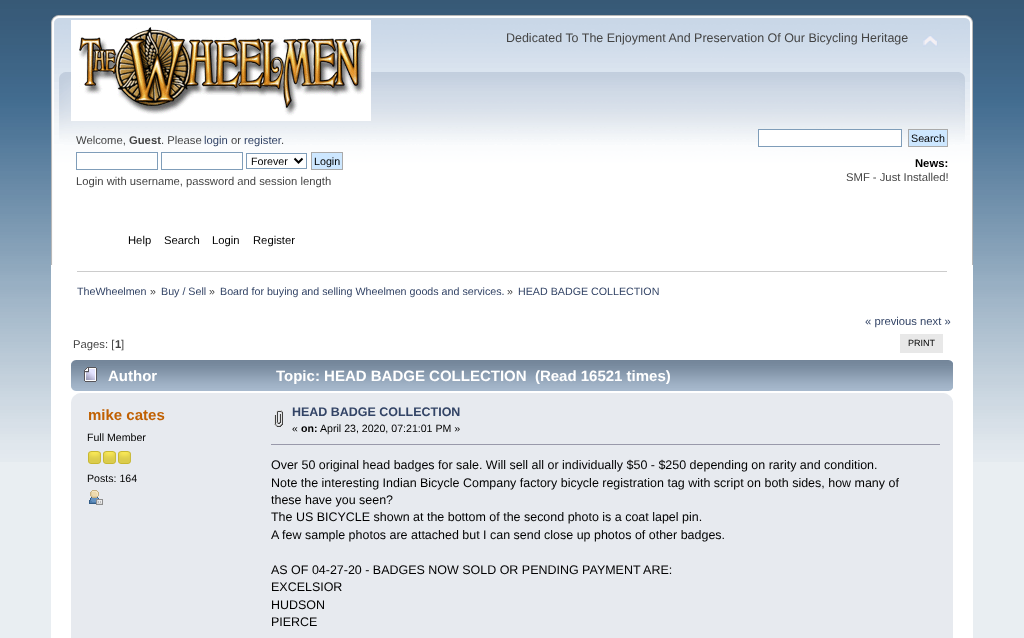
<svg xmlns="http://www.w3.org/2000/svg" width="1024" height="638">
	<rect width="100%" height="100%" fill="#E9EEF2" />
	<image x="0" y="0" width="1024" height="462" href="assets/img1.png" />
	<image x="51" y="15" width="908" height="250" href="assets/img2.png" />
	<image x="959" y="15" width="14" height="250" href="assets/img3.png" />
	<image x="71" y="20" width="300" height="101" href="assets/img4.png" />
	<text x="506" y="42" font-family="Liberation Sans" font-size="12.48" fill="#444444">Dedicated To The Enjoyment And Preservation Of Our Bicycling Heritage</text>
	<image x="923" y="35" width="15" height="12" href="assets/img5.png" />
	<text x="76" y="144" font-family="Liberation Sans" font-size="11.25" fill="#444444">Welcome,</text>
	<text x="129" y="144" font-family="Liberation Sans" font-size="11.25" font-weight="700" fill="#444444">Guest</text>
	<text x="161" y="144" font-family="Liberation Sans" font-size="11.25" fill="#444444">. Please</text>
	<text x="204" y="144" font-family="Liberation Sans" font-size="11.25" fill="#334466">login</text>
	<text x="231" y="144" font-family="Liberation Sans" font-size="11.25" fill="#444444">or</text>
	<text x="244" y="144" font-family="Liberation Sans" font-size="11.25" fill="#334466">register</text>
	<text x="281" y="144" font-family="Liberation Sans" font-size="11.25" fill="#444444">.</text>
	<rect x="77" y="153" width="80" height="2" fill="#FFFFFF" />
	<rect x="76.5" y="152.5" width="81" height="17" fill="none" stroke="#7F9DB9" />
	<rect x="162" y="153" width="80" height="2" fill="#FFFFFF" />
	<rect x="161.5" y="152.5" width="81" height="17" fill="none" stroke="#7F9DB9" />
	<rect x="247" y="154" width="59" height="1" fill="#FFFFFF" />
	<rect x="246.5" y="153.5" width="60" height="15" fill="none" stroke="#7F9DB9" />
	<path d="M294.5 158.5L298.5 162.5L302.5 158.5" fill="none" stroke="#000000" stroke-width="2" />
	<text x="251" y="165" font-family="Liberation Sans" font-size="10.7" fill="#000000">Forever</text>
	<rect x="311.5" y="152.5" width="31" height="17" fill="#CDE7FF" stroke="#AAAAAA" />
	<text x="314" y="165" font-family="Liberation Sans" font-size="10.7" fill="#000000">Login</text>
	<text x="76" y="185" font-family="Liberation Sans" font-size="11.25" fill="#444444">Login with username, password and session length</text>
	<rect x="758.5" y="129.5" width="143" height="17" fill="#FFFFFF" stroke="#7F9DB9" />
	<rect x="908.5" y="129.5" width="39" height="17" fill="#CDE7FF" stroke="#AAAAAA" />
	<text x="911" y="142" font-family="Liberation Sans" font-size="10.7" fill="#000000">Search</text>
	<text x="915" y="167" font-family="Liberation Sans" font-size="11.25" font-weight="700" fill="#000000">News:</text>
	<text x="846" y="181" font-family="Liberation Sans" font-size="11.25" fill="#444444">SMF - Just Installed!</text>
	<g font-family="Liberation Sans" font-size="11.25" fill="#000000">
		<text x="128" y="244">Help</text>
		<text x="164" y="244">Search</text>
		<text x="212" y="244">Login</text>
		<text x="253" y="244">Register</text>
	</g>
	<rect x="51" y="265" width="922" height="373" fill="#FFFFFF" />
	<rect x="77" y="271" width="870" height="1" fill="#CCCCCC" />
	<text x="77" y="295" font-family="Liberation Sans" font-size="10.7" fill="#334466">TheWheelmen</text>
	<text x="150" y="295" font-family="Liberation Sans" font-size="10.7" fill="#444444">»</text>
	<text x="161" y="295" font-family="Liberation Sans" font-size="10.7" fill="#334466">Buy / Sell</text>
	<text x="209" y="295" font-family="Liberation Sans" font-size="10.7" fill="#444444">»</text>
	<text x="220" y="295" font-family="Liberation Sans" font-size="10.7" fill="#334466">Board for buying and selling Wheelmen goods and services.</text>
	<text x="507" y="295" font-family="Liberation Sans" font-size="10.7" fill="#444444">»</text>
	<text x="518" y="295" font-family="Liberation Sans" font-size="10.7" fill="#334466">HEAD BADGE COLLECTION</text>
	<text x="865" y="325" font-family="Liberation Sans" font-size="11.25" fill="#334466">« previous next »</text>
	<text x="73" y="348" font-family="Liberation Sans" font-size="11.25" fill="#444444">Pages: [</text>
	<text x="115" y="348" font-family="Liberation Sans" font-size="11.25" font-weight="700" fill="#444444">1</text>
	<text x="121" y="348" font-family="Liberation Sans" font-size="11.25" fill="#444444">]</text>
	<rect x="900" y="334" width="43" height="19" fill="#E8E8E8" />
	<text x="908" y="346" font-family="Liberation Sans" font-size="9" fill="#000000">PRINT</text>
	<image x="71" y="360" width="877" height="31" href="assets/img6.png" />
	<image x="948" y="360" width="5" height="31" href="assets/img7.png" />
	<image x="84" y="367" width="13" height="15" href="assets/img8.png" />
	<g font-family="Liberation Sans" font-size="15" font-weight="700" fill="#FFFFFF">
		<text x="108" y="381">Author</text>
		<text x="276" y="381" xml:space="preserve">Topic: HEAD BADGE COLLECTION  (Read 16521 times)</text>
	</g>
	<rect x="71" y="393" width="882" height="245" fill="#E7EAEF" />
	<image x="71" y="393" width="9" height="9" href="assets/img9.png" />
	<image x="944" y="393" width="9" height="8" href="assets/img10.png" />
	<text x="88" y="420" font-family="Liberation Sans" font-size="15" font-weight="700" fill="#C06002">mike cates</text>
	<text x="87" y="441" font-family="Liberation Sans" font-size="10.6" fill="#000000">Full Member</text>
	<image x="88" y="451" width="13" height="13" href="assets/img11.png" />
	<image x="103" y="451" width="13" height="13" href="assets/img11.png" />
	<image x="118" y="451" width="13" height="13" href="assets/img11.png" />
	<text x="87" y="482" font-family="Liberation Sans" font-size="10.6" fill="#000000">Posts: 164</text>
	<image x="89" y="490" width="14" height="15" href="assets/img12.png" />
	<image x="274" y="410" width="9" height="17" href="assets/img13.png" />
	<text x="292" y="416" font-family="Liberation Sans" font-size="12.48" font-weight="700" fill="#334466">HEAD BADGE COLLECTION</text>
	<text x="292" y="432" font-family="Liberation Sans" font-size="10.6" fill="#000000">«</text>
	<text x="301" y="432" font-family="Liberation Sans" font-size="10.6" font-weight="700" fill="#000000">on:</text>
	<text x="320" y="432" font-family="Liberation Sans" font-size="10.6" fill="#000000">April 23, 2020, 07:21:01 PM »</text>
	<rect x="271" y="444" width="669" height="1" fill="#9999AA" />
	<g font-family="Liberation Sans" font-size="12.48" fill="#000000">
		<text x="271" y="469">Over 50 original head badges for sale. Will sell all or individually $50 - $250 depending on rarity and condition.</text>
		<text x="271" y="487">Note the interesting Indian Bicycle Company factory bicycle registration tag with script on both sides, how many of</text>
		<text x="271" y="504">these have you seen?</text>
		<text x="271" y="521">The US BICYCLE shown at the bottom of the second photo is a coat lapel pin.</text>
		<text x="271" y="539">A few sample photos are attached but I can send close up photos of other badges.</text>
		<text x="271" y="574">AS OF 04-27-20 - BADGES NOW SOLD OR PENDING PAYMENT ARE:</text>
		<text x="271" y="591">EXCELSIOR</text>
		<text x="271" y="609">HUDSON</text>
		<text x="271" y="626">PIERCE</text>
	</g>
</svg>
